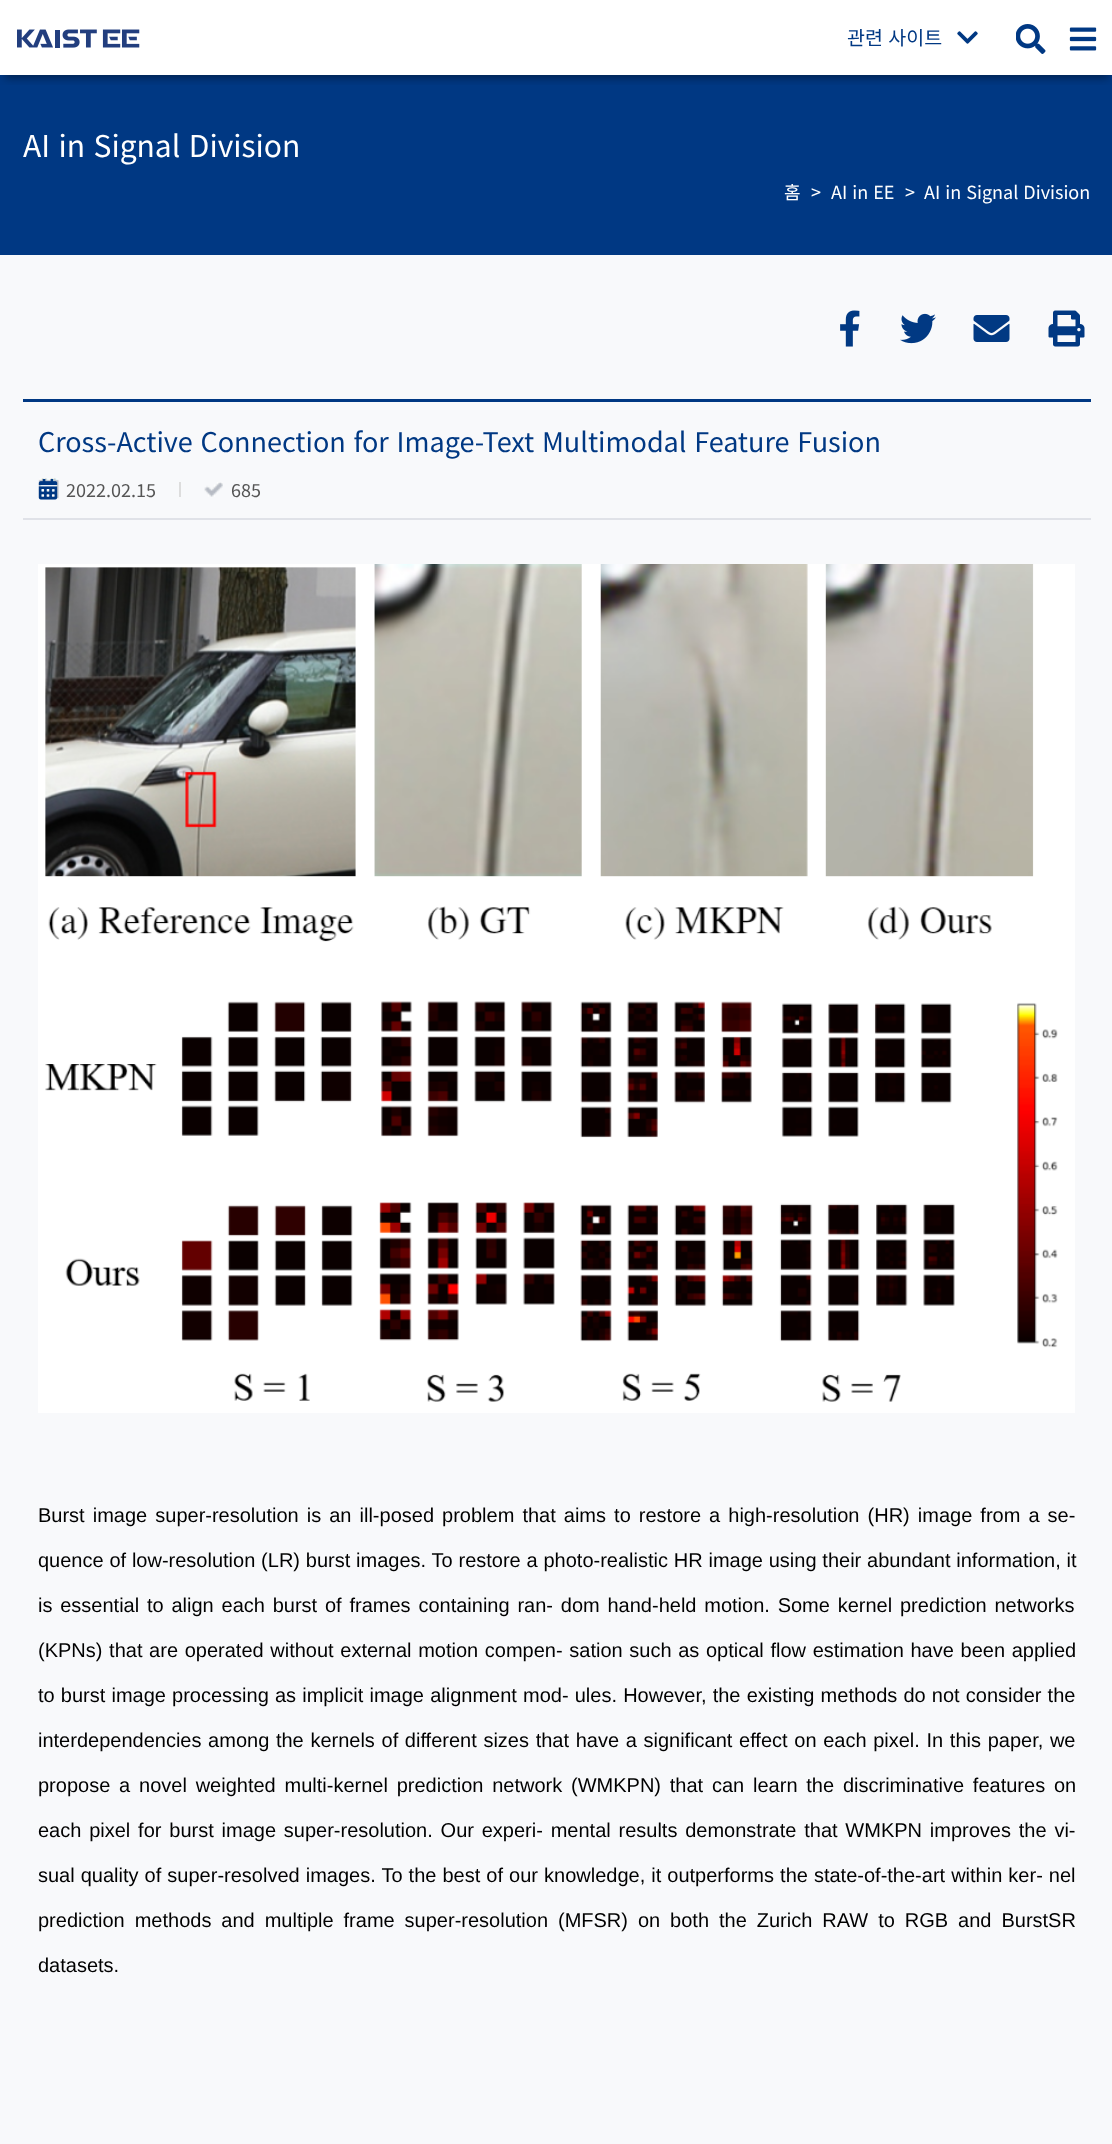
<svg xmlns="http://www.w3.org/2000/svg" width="1112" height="2144">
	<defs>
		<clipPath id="clip1"><rect x="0" y="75" width="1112" height="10" /></clipPath>
	</defs>
	<rect width="100%" height="100%" fill="#F8F9FB" />
	<rect x="0" y="0" width="1112" height="75" fill="#FFFFFF" />
	<rect x="0" y="75" width="1112" height="180" fill="#003883" />
	<g clip-path="url(#clip1)">
		<rect x="5" y="12" width="1104" height="66" fill="#000000" fill-opacity="0.4" filter="blur(4px)" />
	</g>
	<image x="17" y="29" width="123" height="19" href="assets/img1.png" />
	<text x="847" y="45" word-spacing="1" font-family="Noto Sans KR" font-size="19.5" fill="#003883">관련 사이트</text>
	<image x="957" y="31" width="21" height="13" href="assets/img2.png" />
	<image x="1016" y="24" width="30" height="30" href="assets/img3.png" />
	<image x="1069" y="27" width="28" height="24" href="assets/img4.png" />
	<text x="23" y="157" word-spacing="1.75" font-family="Noto Sans KR" font-size="30" fill="#FFFFFF">AI in Signal Division</text>
	<g font-family="Noto Sans KR" font-size="18" fill="#FFFFFF">
		<text x="784" y="199">홈</text>
		<text x="811" y="199">&gt;</text>
		<text x="831" y="199" word-spacing="1">AI in EE</text>
		<text x="905" y="199">&gt;</text>
		<text x="924" y="199" word-spacing="1">AI in Signal Division</text>
	</g>
	<image x="840" y="310" width="20" height="37" href="assets/img5.png" />
	<image x="900" y="313" width="36" height="31" href="assets/img6.png" />
	<image x="973" y="315" width="37" height="27" href="assets/img7.png" />
	<image x="1048" y="310" width="37" height="37" href="assets/img8.png" />
	<rect x="23" y="399" width="1068" height="3" fill="#003883" />
	<rect x="23" y="518" width="1068" height="2" fill="#E0E2E8" />
	<text x="38" y="452" word-spacing="1.75" font-family="Noto Sans KR" font-size="27" fill="#003883">Cross-Active Connection for Image-Text Multimodal Feature Fusion</text>
	<image x="38" y="478" width="21" height="21" href="assets/img9.png" />
	<image x="38" y="479" width="20" height="21" href="assets/img10.png" />
	<text x="66" y="497" font-family="Noto Sans KR" font-size="18" fill="#555555">2022.02.15</text>
	<rect x="179" y="482" width="2" height="15" fill="#DDDDDD" />
	<image x="204" y="482" width="19" height="15" href="assets/img11.png" />
	<text x="231" y="497" font-family="Noto Sans KR" font-size="18" fill="#555555">685</text>
	<image x="38" y="564" width="1037" height="849" href="assets/img12.png" />
	<g font-family="Liberation Sans" font-size="20" fill="#000000">
		<text x="38" y="1522" word-spacing="2.5">Burst image super-resolution is an ill-posed problem that aims to restore a high-resolution (HR) image from a se-</text>
		<text x="38" y="1567" word-spacing="0.25">quence of low-resolution (LR) burst images. To restore a photo-realistic HR image using their abundant information, it</text>
		<text x="38" y="1612" word-spacing="2.25">is essential to align each burst of frames containing ran- dom hand-held motion. Some kernel prediction networks</text>
		<text x="38" y="1657" word-spacing="1.1">(KPNs) that are operated without external motion compen- sation such as optical flow estimation have been applied</text>
		<text x="38" y="1702" word-spacing="0.6">to burst image processing as implicit image alignment mod- ules. However, the existing methods do not consider the</text>
		<text x="38" y="1747" word-spacing="1.1">interdependencies among the kernels of different sizes that have a significant effect on each pixel. In this paper, we</text>
		<text x="38" y="1792" word-spacing="3.25">propose a novel weighted multi-kernel prediction network (WMKPN) that can learn the discriminative features on</text>
		<text x="38" y="1837" word-spacing="2.25">each pixel for burst image super-resolution. Our experi- mental results demonstrate that WMKPN improves the vi-</text>
		<text x="38" y="1882" word-spacing="0.5">sual quality of super-resolved images. To the best of our knowledge, it outperforms the state-of-the-art within ker- nel</text>
		<text x="38" y="1927" word-spacing="4.4">prediction methods and multiple frame super-resolution (MFSR) on both the Zurich RAW to RGB and BurstSR</text>
		<text x="38" y="1972">datasets.</text>
	</g>
</svg>
